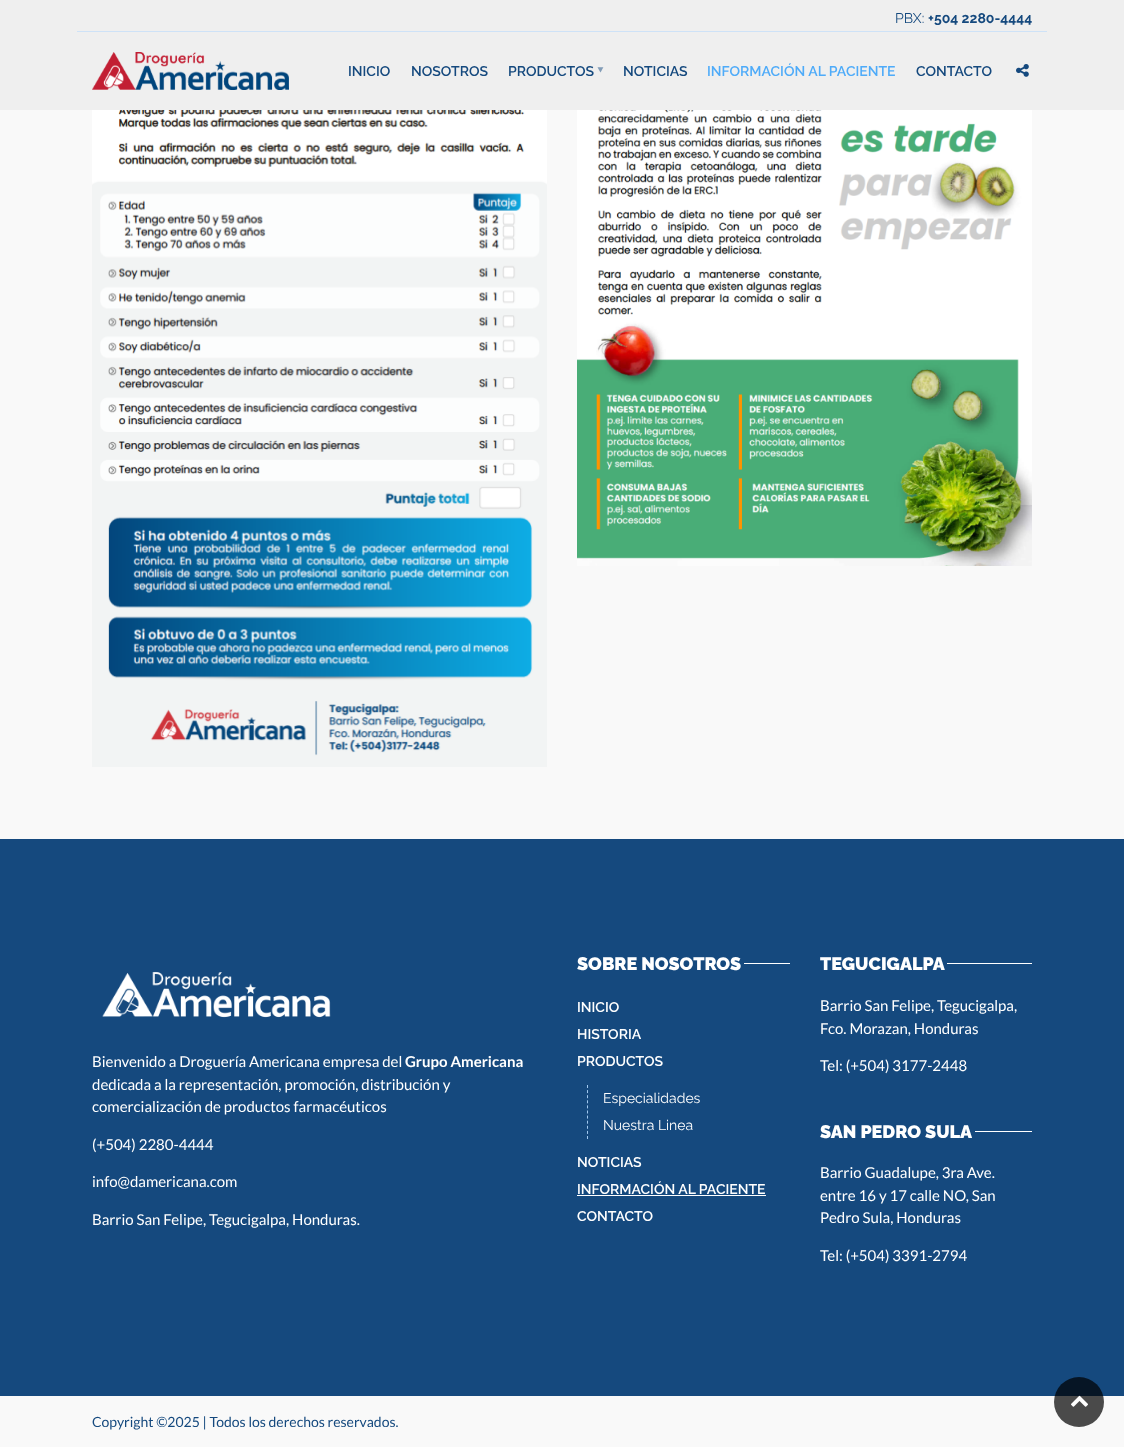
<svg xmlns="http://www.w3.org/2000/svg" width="1124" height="1447">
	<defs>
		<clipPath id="clip1"><rect x="820" y="954" width="212" height="20" /></clipPath>
	</defs>
	<rect width="100%" height="100%" fill="#F9F9F9" />
	<image x="92" y="110" width="455" height="657" href="assets/img3.png" />
	<image x="577" y="110" width="455" height="456" href="assets/img4.png" />
	<rect x="0" y="0" width="1124" height="110" fill="#000000" fill-opacity="0.2" filter="blur(0.5px)" />
	<rect x="0" y="0" width="1124" height="110" fill="#EFEFEF" />
	<rect x="77" y="31" width="970" height="1" fill="#CEE2F7" />
	<text x="895" y="23" font-family="Raleway" font-size="14" fill="#15497E">PBX:</text>
	<text x="928" y="23" font-family="Raleway" font-size="14" font-weight="700" fill="#15497E">+504 2280-4444</text>
	<image x="92" y="52" width="197" height="38" href="assets/img1.png" />
	<g font-family="Raleway" font-size="14" font-weight="600" fill="#15497E">
		<text x="348" y="76">INICIO</text>
		<text x="411" y="76">NOSOTROS</text>
		<text x="508" y="76">PRODUCTOS</text>
	</g>
	<text x="593" y="66" transform="rotate(90 593 66)" font-family="Noto Sans" font-size="20" fill="#829CB7">‣</text>
	<text x="623" y="76" font-family="Raleway" font-size="14" font-weight="600" fill="#15497E">NOTICIAS</text>
	<text x="707" y="76" font-family="Raleway" font-size="14" font-weight="600" fill="#4EABF9">INFORMACIÓN AL PACIENTE</text>
	<text x="916" y="76" font-family="Raleway" font-size="14" font-weight="600" fill="#15497E">CONTACTO</text>
	<image x="1016" y="64" width="13" height="13" href="assets/img2.png" />
	<rect x="0" y="839" width="1124" height="557" fill="#15497E" />
	<image x="102" y="971" width="229" height="47" href="assets/img5.png" />
	<text x="92" y="1067" font-family="Lato" font-size="15" fill="#FFFFFF">Bienvenido a Droguería Americana empresa del</text>
	<text x="405" y="1067" font-family="Lato" font-size="15" font-weight="700" fill="#FFFFFF">Grupo Americana</text>
	<g font-family="Lato" font-size="15" fill="#FFFFFF">
		<text x="92" y="1090">dedicada a la representación, promoción, distribución y</text>
		<text x="92" y="1112">comercialización de productos farmacéuticos</text>
		<text x="92" y="1150">(+504) 2280-4444</text>
		<text x="92" y="1187">info@damericana.com</text>
		<text x="92" y="1225">Barrio San Felipe, Tegucigalpa, Honduras.</text>
	</g>
	<text x="577" y="970" font-family="Raleway" font-size="18" font-weight="900" fill="#FFFFFF">SOBRE NOSOTROS</text>
	<rect x="744" y="963" width="46" height="1" fill="#FFFFFF" />
	<g font-family="Raleway" font-size="14" font-weight="600" fill="#FFFFFF">
		<text x="577" y="1012">INICIO</text>
		<text x="577" y="1039">HISTORIA</text>
		<text x="577" y="1066">PRODUCTOS</text>
	</g>
	<path d="M587.5 1085V1139" fill="none" stroke="#A2C9F0" stroke-dasharray="3 2.1" />
	<g font-family="Raleway" font-size="14" fill="#FFFFFF">
		<text x="603" y="1103">Especialidades</text>
		<text x="603" y="1130">Nuestra Linea</text>
	</g>
	<g font-family="Raleway" font-size="14" font-weight="600" fill="#FFFFFF">
		<text x="577" y="1167">NOTICIAS</text>
		<text x="577" y="1194">INFORMACIÓN AL PACIENTE</text>
	</g>
	<rect x="577" y="1195" width="189" height="1" fill="#FFFFFF" />
	<text x="577" y="1221" font-family="Raleway" font-size="14" font-weight="600" fill="#FFFFFF">CONTACTO</text>
	<g clip-path="url(#clip1)">
		<text x="820" y="970" font-family="Raleway" font-size="18" font-weight="900" fill="#FFFFFF">TEGUCIGALPA</text>
	</g>
	<rect x="947" y="963" width="85" height="1" fill="#FFFFFF" />
	<g font-family="Lato" font-size="15" fill="#FFFFFF">
		<text x="820" y="1011">Barrio San Felipe, Tegucigalpa,</text>
		<text x="820" y="1034">Fco. Morazan, Honduras</text>
		<text x="820" y="1071">Tel: (+504) 3177-2448</text>
	</g>
	<text x="820" y="1138" font-family="Raleway" font-size="18" font-weight="900" fill="#FFFFFF">SAN PEDRO SULA</text>
	<rect x="975" y="1131" width="57" height="1" fill="#FFFFFF" />
	<g font-family="Lato" font-size="15" fill="#FFFFFF">
		<text x="820" y="1178">Barrio Guadalupe, 3ra Ave.</text>
		<text x="820" y="1201">entre 16 y 17 calle NO, San</text>
		<text x="820" y="1223">Pedro Sula, Honduras</text>
		<text x="820" y="1261">Tel: (+504) 3391-2794</text>
	</g>
	<text x="92" y="1427" font-family="Lato" font-size="14" fill="#15497E">Copyright ©2025 | Todos los derechos reservados.</text>
	<circle cx="1079" cy="1402" r="25" fill="#000000" fill-opacity="0.7" />
	<image x="1071" y="1395" width="17" height="12" href="assets/img6.png" />
</svg>
